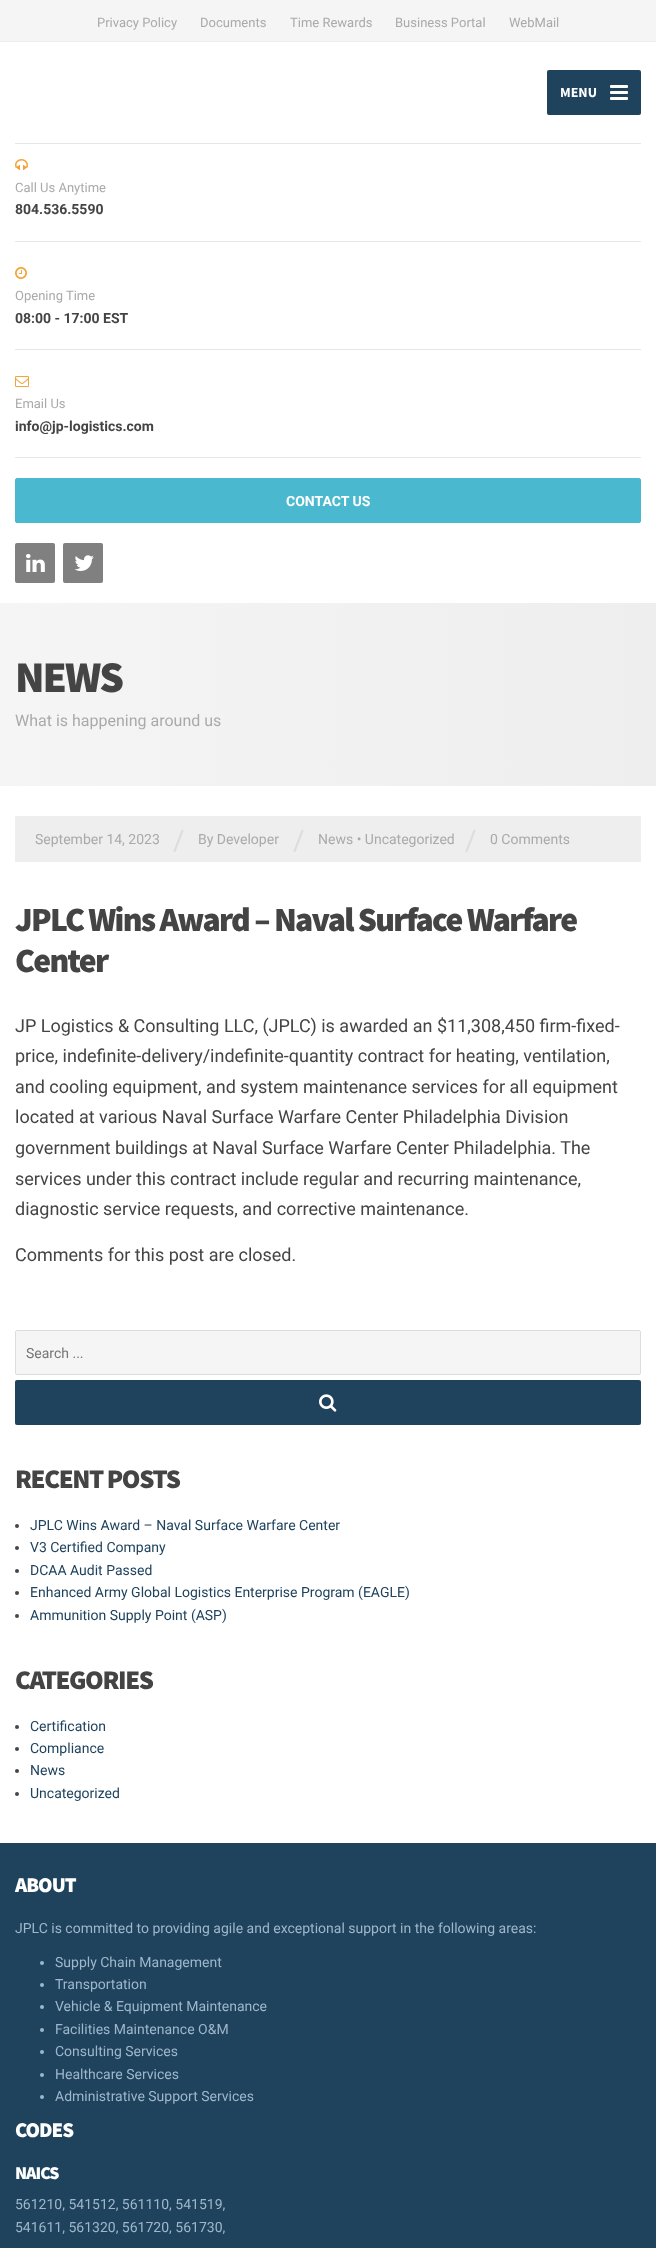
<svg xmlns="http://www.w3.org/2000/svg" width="656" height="2248">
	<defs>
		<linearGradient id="g1" gradientUnits="userSpaceOnUse" x1="0" y1="695" x2="656" y2="695"><stop offset="0" stop-color="#F5F5F5" /><stop offset="1" stop-color="#EEEEEE" /></linearGradient>
	</defs>
	<rect width="100%" height="100%" fill="#FFFFFF" />
	<rect x="0" y="0" width="656" height="41" fill="#F5F5F5" />
	<rect x="0" y="41" width="656" height="1" fill="#EDEDED" />
	<g font-family="Roboto" font-size="13" fill="#AAAAAA">
		<text x="97" y="27">Privacy Policy</text>
		<text x="200" y="27">Documents</text>
		<text x="290" y="27">Time Rewards</text>
		<text x="395" y="27">Business Portal</text>
		<text x="509" y="27">WebMail</text>
	</g>
	<rect x="15" y="143" width="626" height="1" fill="#E6E6E6" />
	<rect x="547" y="70" width="94" height="45" rx="2" fill="#1F425D" />
	<text x="560" y="97" font-family="Source Sans Pro" font-size="14" font-weight="700" fill="#FFFFFF">MENU</text>
	<rect x="610" y="85" width="18" height="3" rx="1" fill="#FFFFFF" />
	<rect x="610" y="91" width="18" height="3" rx="1" fill="#FFFFFF" />
	<rect x="610" y="97" width="18" height="3" rx="1" fill="#FFFFFF" />
	<rect x="15" y="241" width="626" height="1" fill="#E6E6E6" />
	<image x="15" y="159" width="13" height="11" href="assets/img1.png" />
	<text x="15" y="192" font-family="Roboto" font-size="13" fill="#AAAAAA">Call Us Anytime</text>
	<text x="15" y="214" font-family="Roboto" font-size="14" font-weight="700" fill="#444444">804.536.5590</text>
	<rect x="15" y="349" width="626" height="1" fill="#E6E6E6" />
	<image x="15" y="267" width="12" height="12" href="assets/img2.png" />
	<text x="15" y="300" font-family="Roboto" font-size="13" fill="#AAAAAA">Opening Time</text>
	<text x="15" y="323" font-family="Roboto" font-size="14" font-weight="700" fill="#444444">08:00 - 17:00 EST</text>
	<rect x="15" y="457" width="626" height="1" fill="#E6E6E6" />
	<image x="15" y="376" width="14" height="11" href="assets/img3.png" />
	<text x="15" y="408" font-family="Roboto" font-size="13" fill="#AAAAAA">Email Us</text>
	<text x="15" y="431" font-family="Roboto" font-size="14" font-weight="700" fill="#444444">info@jp-logistics.com</text>
	<rect x="15.5" y="478.5" width="625" height="44" rx="1.5" fill="#4AB9CF" stroke="#4AB9CF" />
	<text x="286" y="506" font-family="Roboto" font-size="14" font-weight="700" fill="#FFFFFF">CONTACT US</text>
	<rect x="15" y="543" width="40" height="40" rx="2" fill="#808080" />
	<image x="26" y="554" width="19" height="18" href="assets/img4.png" />
	<rect x="63" y="543" width="40" height="40" rx="2" fill="#808080" />
	<image x="74" y="555" width="20" height="16" href="assets/img5.png" />
	<rect x="0" y="603" width="656" height="183" fill="url(#g1)" />
	<text x="15" y="692" font-family="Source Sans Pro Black" font-size="44" font-weight="900" letter-spacing="-2" fill="#444444">NEWS</text>
	<text x="15" y="726" font-family="Roboto" font-size="16" fill="#AAAAAA">What is happening around us</text>
	<rect x="15" y="816" width="626" height="46" fill="#EEEEEE" />
	<text x="35" y="844" font-family="Roboto" font-size="14" fill="#AAAAAA">September 14, 2023</text>
	<text x="173" y="850" font-family="Roboto" font-size="28" fill="#DDDDDD">/</text>
	<text x="198" y="844" font-family="Roboto" font-size="14" fill="#AAAAAA">By Developer</text>
	<text x="293" y="850" font-family="Roboto" font-size="28" fill="#DDDDDD">/</text>
	<text x="318" y="844" font-family="Roboto" font-size="14" fill="#AAAAAA">News • Uncategorized</text>
	<text x="465" y="850" font-family="Roboto" font-size="28" fill="#DDDDDD">/</text>
	<text x="490" y="844" font-family="Roboto" font-size="14" fill="#AAAAAA">0 Comments</text>
	<g font-family="Source Sans Pro Black" font-size="34" font-weight="900" letter-spacing="-1.7" fill="#444444">
		<text x="15" y="931">JPLC Wins Award – Naval Surface Warfare</text>
		<text x="15" y="972">Center</text>
	</g>
	<g font-family="Roboto" font-size="18" fill="#444444">
		<text x="15" y="1032">JP Logistics &amp; Consulting LLC, (JPLC) is awarded an $11,308,450 firm-fixed-</text>
		<text x="15" y="1062">price, indefinite-delivery/indefinite-quantity contract for heating, ventilation,</text>
		<text x="15" y="1093">and cooling equipment, and system maintenance services for all equipment</text>
		<text x="15" y="1123">located at various Naval Surface Warfare Center Philadelphia Division</text>
		<text x="15" y="1154">government buildings at Naval Surface Warfare Center Philadelphia. The</text>
		<text x="15" y="1185">services under this contract include regular and recurring maintenance,</text>
		<text x="15" y="1215">diagnostic service requests, and corrective maintenance.</text>
		<text x="15" y="1261">Comments for this post are closed.</text>
	</g>
	<rect x="15.5" y="1330.5" width="625" height="44" rx="1.5" fill="#F5F5F5" stroke="#DDDDDD" />
	<text x="26" y="1358" font-family="Roboto" font-size="14" fill="#757575">Search ...</text>
	<rect x="15" y="1380" width="626" height="45" rx="2" fill="#1F425D" />
	<image x="319" y="1394" width="18" height="18" href="assets/img6.png" />
	<text x="15" y="1488" font-family="Source Sans Pro Black" font-size="27" font-weight="900" letter-spacing="-1.4" fill="#444444">RECENT POSTS</text>
	<circle cx="17" cy="1526" r="2" fill="#474747" />
	<text x="30" y="1530" font-family="Roboto" font-size="14" fill="#1F425D">JPLC Wins Award – Naval Surface Warfare Center</text>
	<circle cx="17" cy="1548" r="2" fill="#474747" />
	<text x="30" y="1552" font-family="Roboto" font-size="14" fill="#1F425D">V3 Certified Company</text>
	<circle cx="17" cy="1571" r="2" fill="#474747" />
	<text x="30" y="1575" font-family="Roboto" font-size="14" fill="#1F425D">DCAA Audit Passed</text>
	<circle cx="17" cy="1593" r="2" fill="#474747" />
	<text x="30" y="1597" font-family="Roboto" font-size="14" fill="#1F425D">Enhanced Army Global Logistics Enterprise Program (EAGLE)</text>
	<circle cx="17" cy="1616" r="2" fill="#474747" />
	<text x="30" y="1620" font-family="Roboto" font-size="14" fill="#1F425D">Ammunition Supply Point (ASP)</text>
	<text x="15" y="1689" font-family="Source Sans Pro Black" font-size="27" font-weight="900" letter-spacing="-1.4" fill="#444444">CATEGORIES</text>
	<circle cx="17" cy="1727" r="2" fill="#474747" />
	<text x="30" y="1731" font-family="Roboto" font-size="14" fill="#1F425D">Certification</text>
	<circle cx="17" cy="1749" r="2" fill="#474747" />
	<text x="30" y="1753" font-family="Roboto" font-size="14" fill="#1F425D">Compliance</text>
	<circle cx="17" cy="1771" r="2" fill="#474747" />
	<text x="30" y="1775" font-family="Roboto" font-size="14" fill="#1F425D">News</text>
	<circle cx="17" cy="1794" r="2" fill="#474747" />
	<text x="30" y="1798" font-family="Roboto" font-size="14" fill="#1F425D">Uncategorized</text>
	<rect x="0" y="1843" width="656" height="405" fill="#1F425D" />
	<text x="15" y="1892" font-family="Source Sans Pro Black" font-size="21" font-weight="900" letter-spacing="-1" fill="#FFFFFF">ABOUT</text>
	<text x="15" y="1933" font-family="Roboto" font-size="14" fill="#9EB7CB">JPLC is committed to providing agile and exceptional support in the following areas:</text>
	<circle cx="42" cy="1963" r="2" fill="#9EB7CB" />
	<text x="55" y="1967" font-family="Roboto" font-size="14" fill="#9EB7CB">Supply Chain Management</text>
	<circle cx="42" cy="1985" r="2" fill="#9EB7CB" />
	<text x="55" y="1989" font-family="Roboto" font-size="14" fill="#9EB7CB">Transportation</text>
	<circle cx="42" cy="2007" r="2" fill="#9EB7CB" />
	<text x="55" y="2011" font-family="Roboto" font-size="14" fill="#9EB7CB">Vehicle &amp; Equipment Maintenance</text>
	<circle cx="42" cy="2030" r="2" fill="#9EB7CB" />
	<text x="55" y="2034" font-family="Roboto" font-size="14" fill="#9EB7CB">Facilities Maintenance O&amp;M</text>
	<circle cx="42" cy="2052" r="2" fill="#9EB7CB" />
	<text x="55" y="2056" font-family="Roboto" font-size="14" fill="#9EB7CB">Consulting Services</text>
	<circle cx="42" cy="2075" r="2" fill="#9EB7CB" />
	<text x="55" y="2079" font-family="Roboto" font-size="14" fill="#9EB7CB">Healthcare Services</text>
	<circle cx="42" cy="2097" r="2" fill="#9EB7CB" />
	<text x="55" y="2101" font-family="Roboto" font-size="14" fill="#9EB7CB">Administrative Support Services</text>
	<text x="15" y="2137" font-family="Source Sans Pro Black" font-size="21" font-weight="900" letter-spacing="-1" fill="#FFFFFF">CODES</text>
	<text x="15" y="2179" font-family="Source Sans Pro Black" font-size="18" font-weight="900" letter-spacing="-1" fill="#FFFFFF">NAICS</text>
	<g font-family="Roboto" font-size="14" fill="#9EB7CB">
		<text x="15" y="2209">561210, 541512, 561110, 541519,</text>
		<text x="15" y="2232">541611, 561320, 561720, 561730,</text>
	</g>
</svg>
